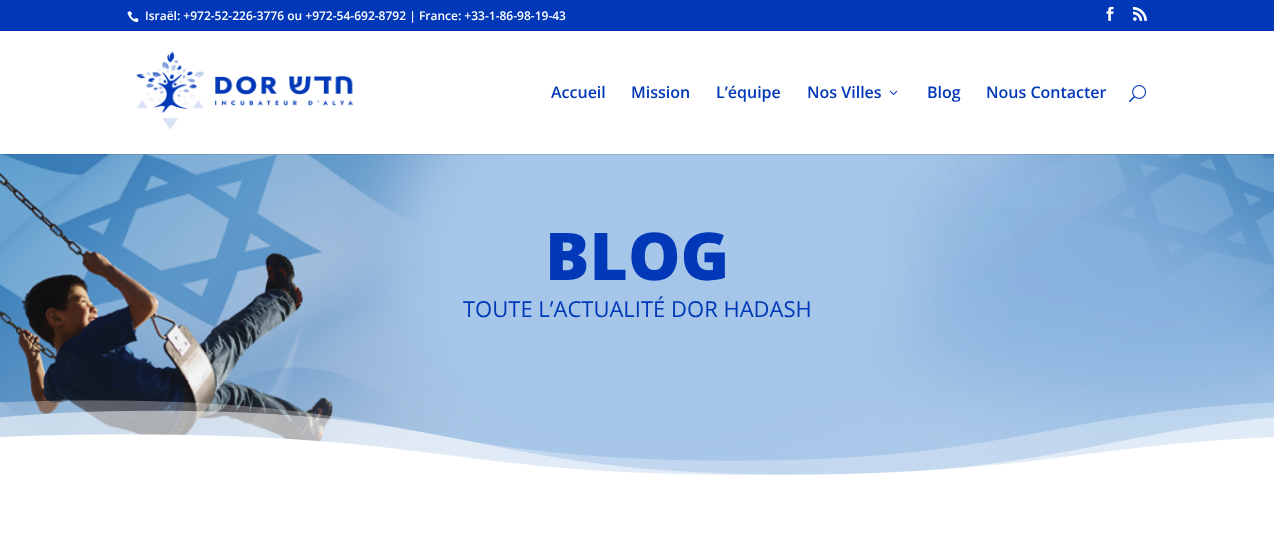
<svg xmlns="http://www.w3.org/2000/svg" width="1274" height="558">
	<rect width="100%" height="100%" fill="#FFFFFF" />
	<rect x="0" y="0" width="1274" height="31" fill="#0038B8" />
	<image x="127" y="11" width="12" height="12" href="assets/img1.png" />
	<text x="145" y="20" font-family="Open Sans" font-size="12" font-weight="600" fill="#FFFFFF">Israël: +972-52-226-3776 ou +972-54-692-8792 | France: +33-1-86-98-19-43</text>
	<image x="1106" y="6" width="8" height="15" href="assets/img2.png" />
	<image x="1133" y="6" width="14" height="15" href="assets/img3.png" />
	<image x="0" y="154" width="1274" height="322" href="assets/img7.png" />
	<rect x="0" y="154" width="1274" height="1" fill="#000000" fill-opacity="0.1" />
	<image x="136" y="51" width="218" height="79" href="assets/img4.png" />
	<g font-family="Open Sans" font-size="16" font-weight="600" fill="#0038B8">
		<text x="551" y="98">Accueil</text>
		<text x="631" y="98">Mission</text>
		<text x="716" y="98">L’équipe</text>
		<text x="807" y="98">Nos Villes</text>
	</g>
	<image x="889" y="90" width="9" height="5" href="assets/img5.png" />
	<g font-family="Open Sans" font-size="16" font-weight="600" fill="#0038B8">
		<text x="927" y="98">Blog</text>
		<text x="986" y="98">Nous Contacter</text>
	</g>
	<image x="1129" y="85" width="17" height="18" href="assets/img6.png" />
	<text x="545" y="280" font-family="Open Sans" font-size="66" font-weight="800" fill="#0038B8">BLOG</text>
	<text x="463" y="317" font-family="Open Sans" font-size="22" fill="#0038B8">TOUTE L’ACTUALITÉ DOR HADASH</text>
	<image x="0" y="400" width="1274" height="99" href="assets/img8.png" />
</svg>
